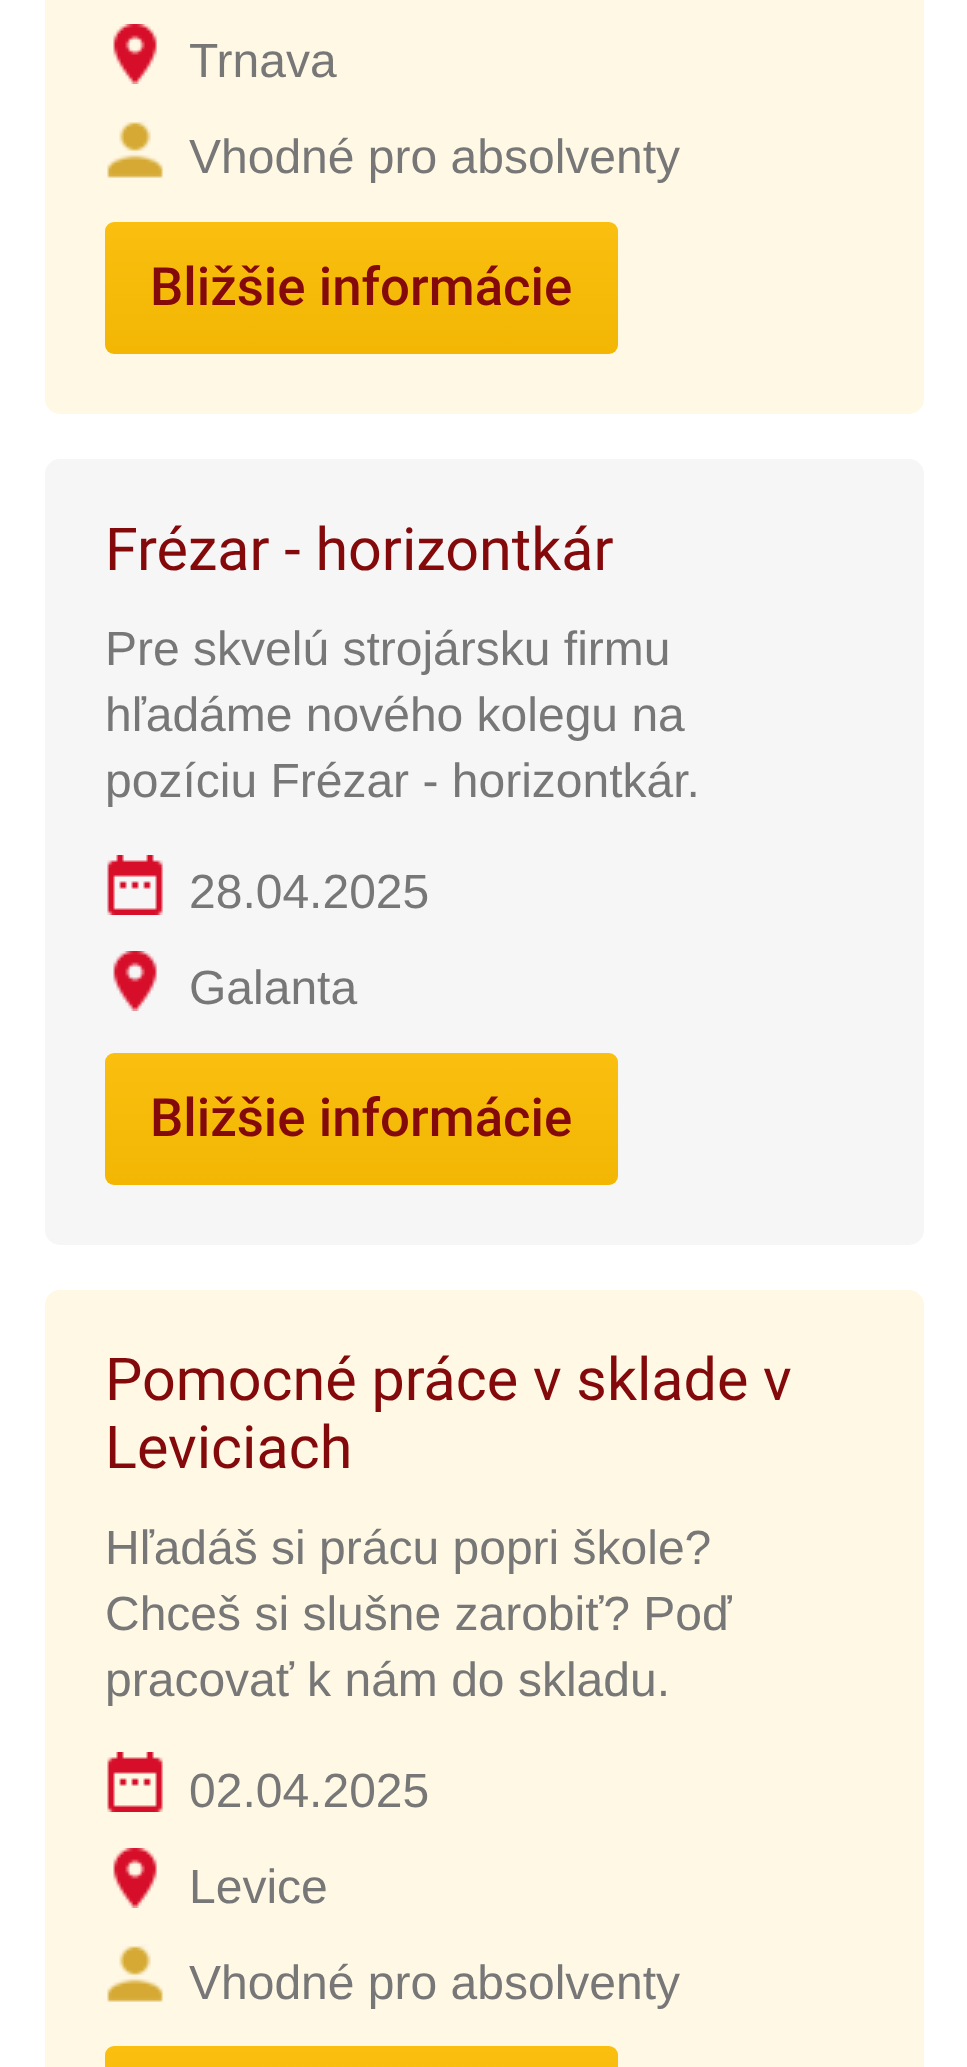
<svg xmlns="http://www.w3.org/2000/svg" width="967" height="2067">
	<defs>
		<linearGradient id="g1" gradientUnits="userSpaceOnUse" x1="362" y1="222" x2="362" y2="354"><stop offset="0" stop-color="#FABF0F" /><stop offset="1" stop-color="#F2B603" /></linearGradient>
		<linearGradient id="g2" gradientUnits="userSpaceOnUse" x1="362" y1="1053" x2="362" y2="1185"><stop offset="0" stop-color="#FABF0F" /><stop offset="1" stop-color="#F2B603" /></linearGradient>
		<linearGradient id="g3" gradientUnits="userSpaceOnUse" x1="362" y1="2046" x2="362" y2="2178"><stop offset="0" stop-color="#FABF0F" /><stop offset="1" stop-color="#F2B603" /></linearGradient>
	</defs>
	<rect width="100%" height="100%" fill="#FFFFFF" />
	<rect x="45" y="-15" width="879" height="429" rx="15" fill="#FFF8E5" />
	<image x="113" y="24" width="44" height="60" href="assets/img1.png" />
	<text x="189" y="77" font-family="Liberation Sans" font-size="48" fill="#777777">Trnava</text>
	<image x="107" y="120" width="56" height="58" href="assets/img2.png" />
	<text x="189" y="173" font-family="Liberation Sans" font-size="48" fill="#777777">Vhodné pro absolventy</text>
	<rect x="105" y="222" width="513" height="132" rx="9" fill="url(#g1)" />
	<text x="150" y="305" font-family="Roboto" font-size="52.75" font-weight="500" fill="#83090B">Bližšie informácie</text>
	<rect x="45" y="459" width="879" height="786" rx="15" fill="#F6F6F6" />
	<text x="105" y="570" font-family="Roboto" font-size="59.25" fill="#83090B">Frézar - horizontkár</text>
	<g font-family="Liberation Sans" font-size="48" fill="#777777">
		<text x="105" y="665">Pre skvelú strojársku firmu</text>
		<text x="105" y="731">hľadáme nového kolegu na</text>
		<text x="105" y="797">pozíciu Frézar - horizontkár.</text>
	</g>
	<image x="107" y="855" width="56" height="60" href="assets/img3.png" />
	<text x="189" y="908" font-family="Liberation Sans" font-size="48" fill="#777777">28.04.2025</text>
	<image x="113" y="951" width="44" height="60" href="assets/img4.png" />
	<text x="189" y="1004" font-family="Liberation Sans" font-size="48" fill="#777777">Galanta</text>
	<rect x="105" y="1053" width="513" height="132" rx="9" fill="url(#g2)" />
	<text x="150" y="1136" font-family="Roboto" font-size="52.75" font-weight="500" fill="#83090B">Bližšie informácie</text>
	<rect x="45" y="1290" width="879" height="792" rx="15" fill="#FFF8E5" />
	<g font-family="Roboto" font-size="59.25" fill="#83090B">
		<text x="105" y="1400">Pomocné práce v sklade v</text>
		<text x="105" y="1468">Leviciach</text>
	</g>
	<g font-family="Liberation Sans" font-size="48" fill="#777777">
		<text x="105" y="1564">Hľadáš si prácu popri škole?</text>
		<text x="105" y="1630">Chceš si slušne zarobiť? Poď</text>
		<text x="105" y="1696">pracovať k nám do skladu.</text>
	</g>
	<image x="107" y="1752" width="56" height="60" href="assets/img5.png" />
	<text x="189" y="1807" font-family="Liberation Sans" font-size="48" fill="#777777">02.04.2025</text>
	<image x="113" y="1848" width="44" height="60" href="assets/img1.png" />
	<text x="189" y="1903" font-family="Liberation Sans" font-size="48" fill="#777777">Levice</text>
	<image x="107" y="1944" width="56" height="58" href="assets/img2.png" />
	<text x="189" y="1999" font-family="Liberation Sans" font-size="48" fill="#777777">Vhodné pro absolventy</text>
	<rect x="105" y="2046" width="513" height="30" rx="9" fill="url(#g3)" />
</svg>
